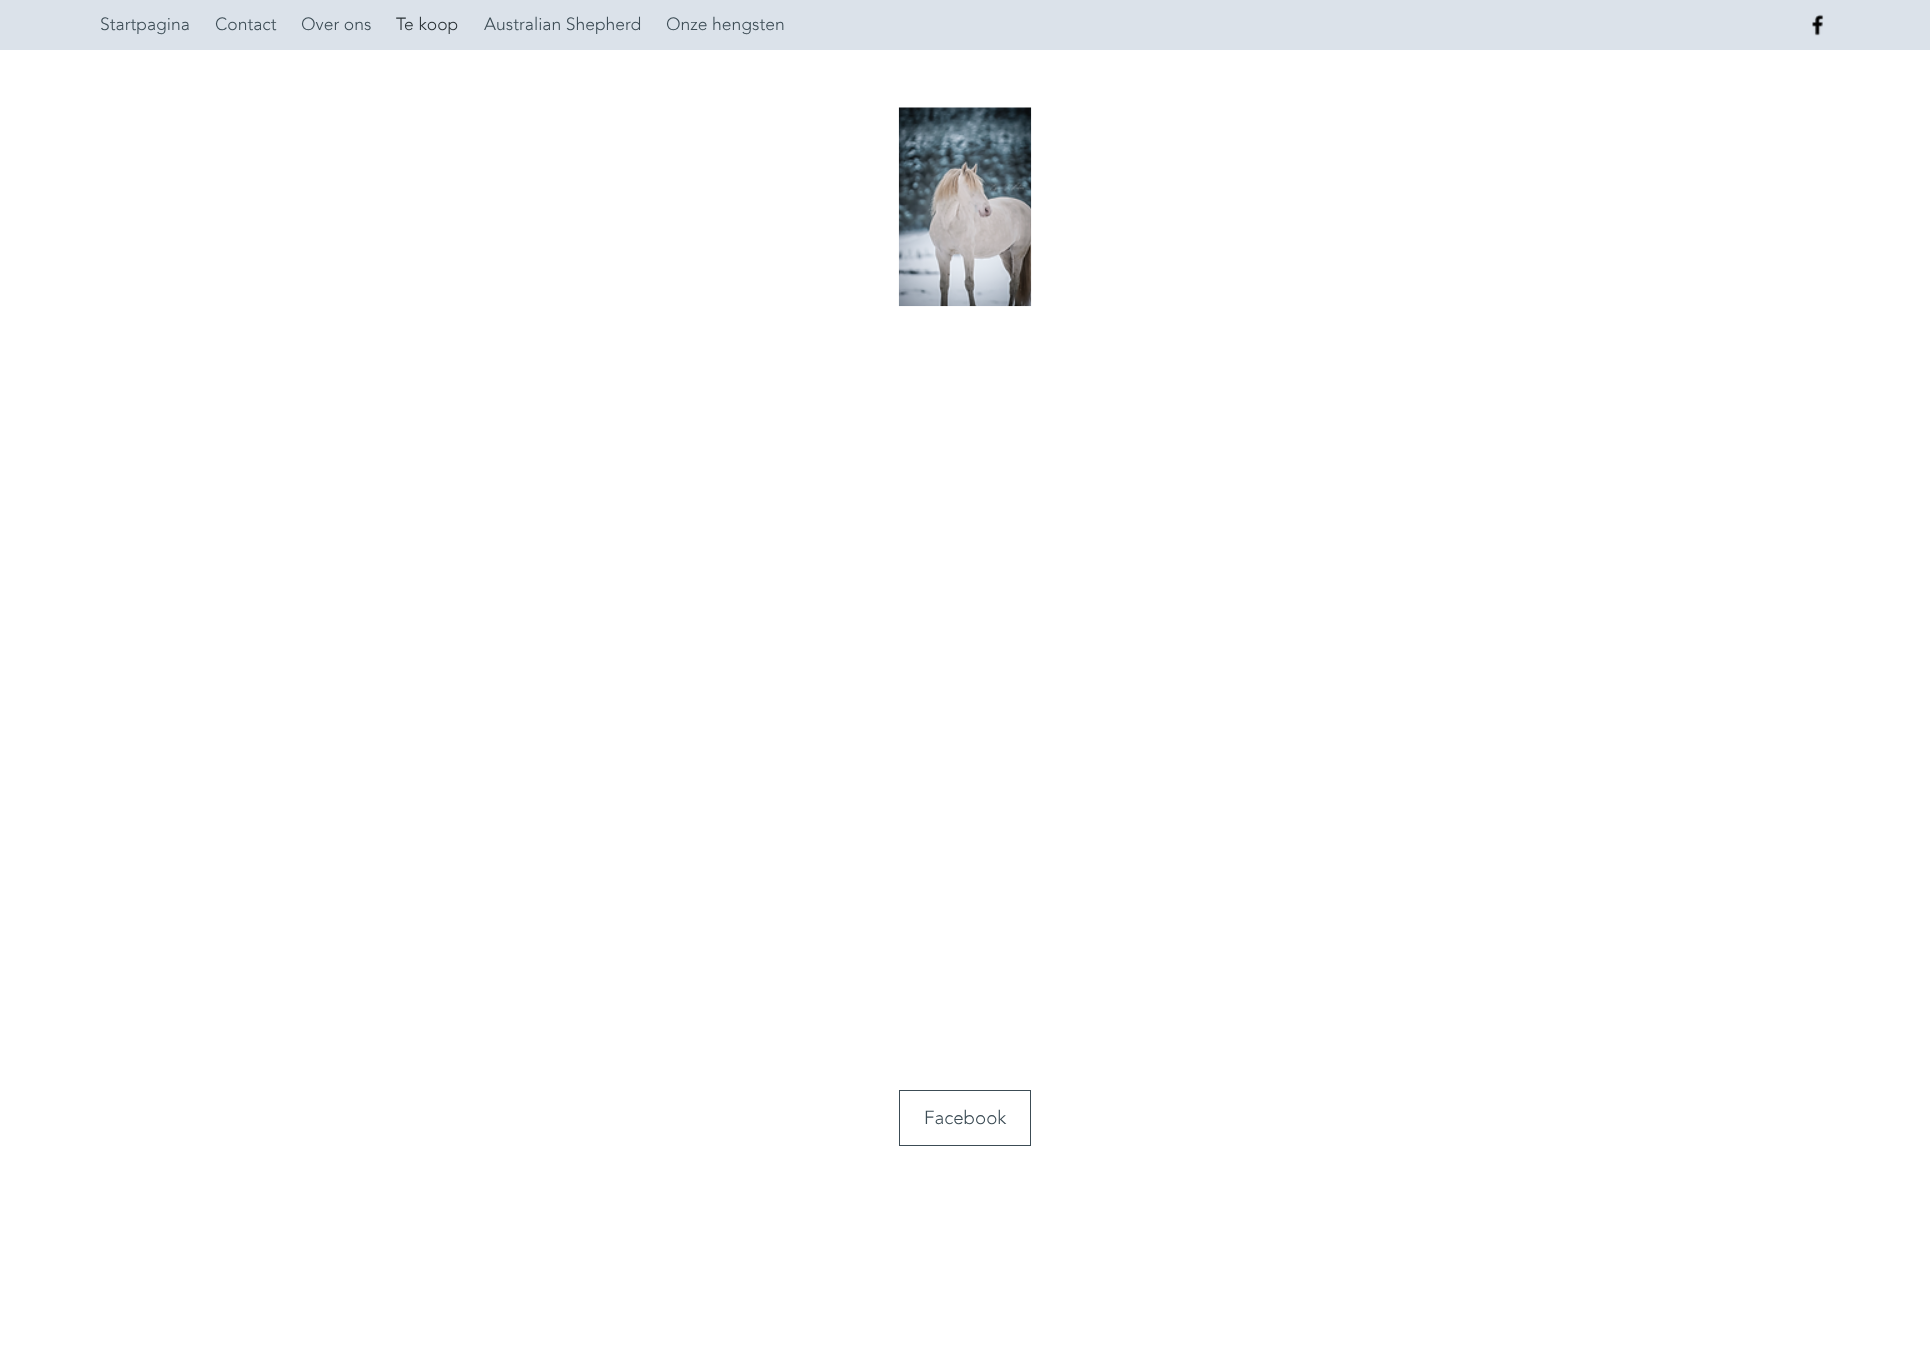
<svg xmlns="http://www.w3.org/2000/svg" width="1930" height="1366">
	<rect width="100%" height="100%" fill="#FFFFFF" />
	<rect x="0" y="0" width="1930" height="50" fill="#DBE2EA" />
	<g font-family="'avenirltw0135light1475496'" font-size="17.5" font-weight="300" fill="#3C4C55">
		<text x="100" y="30">Startpagina</text>
		<text x="215" y="30">Contact</text>
		<text x="301" y="30">Over ons</text>
	</g>
	<text x="396" y="30" font-family="'avenirltw0135light1475496'" font-size="17.5" font-weight="300" fill="#293135">Te koop</text>
	<g font-family="'avenirltw0135light1475496'" font-size="17.5" font-weight="300" fill="#3C4C55">
		<text x="484" y="30">Australian Shepherd</text>
		<text x="666" y="30">Onze hengsten</text>
	</g>
	<image x="1812" y="14" width="12" height="22" href="assets/img1.png" />
	<image x="898" y="107" width="134" height="200" href="assets/img2.png" />
	<rect x="899.5" y="1090.5" width="131" height="55" fill="none" stroke="#3C4C55" />
	<text x="924" y="1124" font-family="'avenirltw0135light1475496'" font-size="18.75" font-weight="300" fill="#3C4C55">Facebook</text>
</svg>
